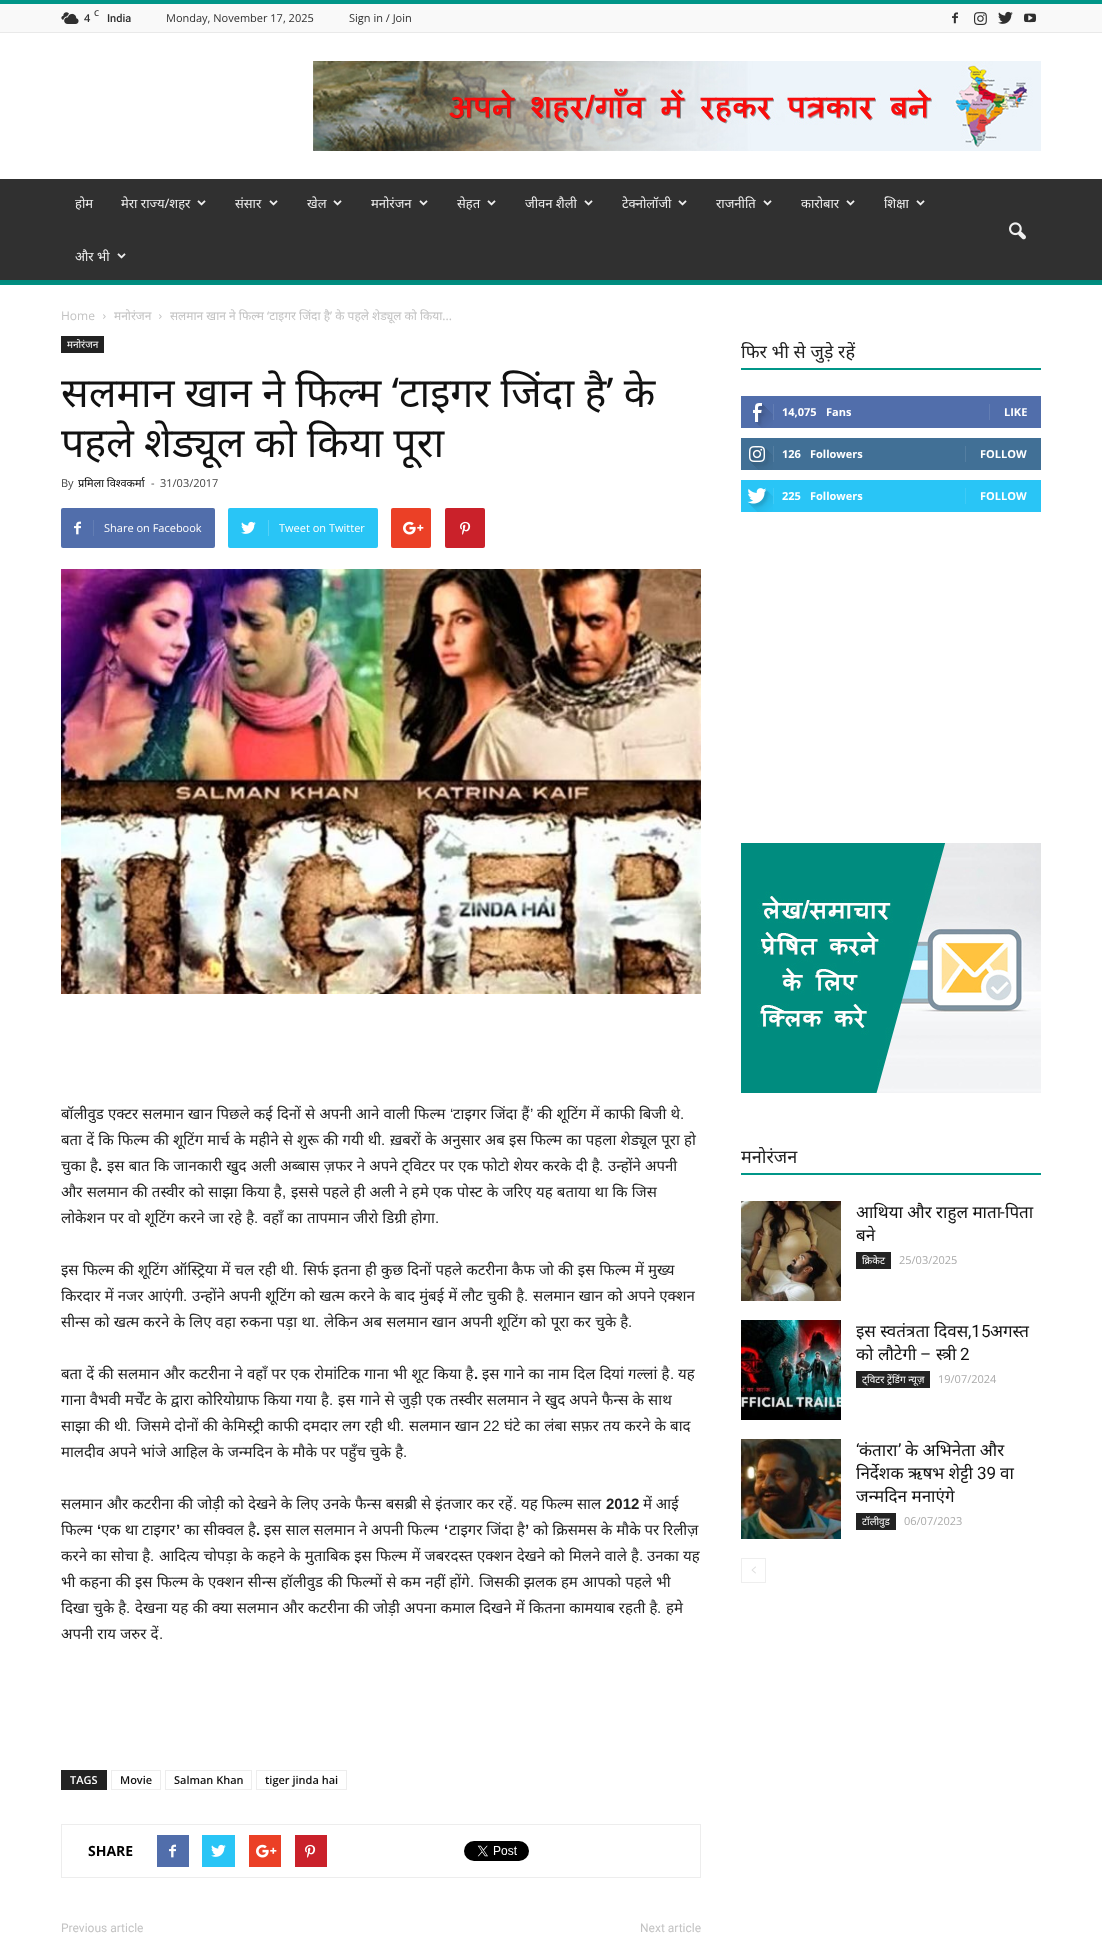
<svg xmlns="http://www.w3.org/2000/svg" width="1102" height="1947">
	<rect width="100%" height="100%" fill="#FFFFFF" />
	<rect x="0" y="4" width="1102" height="28" fill="#F9F9F9" />
	<rect x="0" y="0" width="1102" height="4" fill="#009688" />
	<rect x="0" y="32" width="1102" height="1" fill="#E9E9E9" />
	<image x="61" y="12" width="18" height="12" href="assets/img1.png" />
	<text x="84" y="22" font-family="Open Sans" font-size="11" font-weight="600" fill="#2F2F2F">4</text>
	<text x="94" y="16" font-family="Open Sans" font-size="8" font-weight="600" fill="#2F2F2F">C</text>
	<text x="107" y="22" font-family="Roboto" font-size="11" font-weight="500" fill="#2F2F2F">India</text>
	<g font-family="Open Sans" font-size="11" fill="#2F2F2F">
		<text x="166" y="22">Monday, November 17, 2025</text>
		<text x="349" y="22">Sign in / Join</text>
	</g>
	<image x="952" y="12" width="6" height="12" href="assets/img2.png" />
	<image x="974" y="12" width="13" height="13" href="assets/img3.png" />
	<image x="998" y="11" width="15" height="13" href="assets/img4.png" />
	<image x="1024" y="13" width="12" height="10" href="assets/img5.png" />
	<image x="313" y="61" width="728" height="90" href="assets/img6.png" />
	<rect x="0" y="179" width="1102" height="101" fill="#303030" />
	<g font-family="Noto Sans" font-size="13" fill="#EFEFEF">
		<text x="75" y="208">होम</text>
		<text x="121" y="208">मेरा राज्य/शहर</text>
	</g>
	<image x="197" y="200" width="9" height="6" href="assets/img7.png" />
	<text x="235" y="208" font-family="Noto Sans" font-size="13" fill="#EFEFEF">संसार</text>
	<image x="269" y="200" width="9" height="6" href="assets/img7.png" />
	<text x="307" y="208" font-family="Noto Sans" font-size="13" fill="#EFEFEF">खेल</text>
	<image x="333" y="200" width="9" height="6" href="assets/img7.png" />
	<text x="371" y="208" font-family="Noto Sans" font-size="13" fill="#EFEFEF">मनोरंजन</text>
	<image x="419" y="200" width="9" height="6" href="assets/img7.png" />
	<text x="457" y="208" font-family="Noto Sans" font-size="13" fill="#EFEFEF">सेहत</text>
	<image x="487" y="200" width="9" height="6" href="assets/img7.png" />
	<text x="525" y="208" font-family="Noto Sans" font-size="13" fill="#EFEFEF">जीवन शैली</text>
	<image x="584" y="200" width="9" height="6" href="assets/img7.png" />
	<text x="622" y="208" font-family="Noto Sans" font-size="13" fill="#EFEFEF">टेक्नोलॉजी</text>
	<image x="678" y="200" width="9" height="6" href="assets/img7.png" />
	<text x="716" y="208" font-family="Noto Sans" font-size="13" fill="#EFEFEF">राजनीति</text>
	<image x="763" y="200" width="9" height="6" href="assets/img7.png" />
	<text x="801" y="208" font-family="Noto Sans" font-size="13" fill="#EFEFEF">कारोबार</text>
	<image x="846" y="200" width="9" height="6" href="assets/img7.png" />
	<text x="884" y="208" font-family="Noto Sans" font-size="13" fill="#EFEFEF">शिक्षा</text>
	<image x="916" y="200" width="9" height="6" href="assets/img7.png" />
	<text x="75" y="261" font-family="Noto Sans" font-size="13" fill="#EFEFEF">और भी</text>
	<image x="117" y="253" width="9" height="6" href="assets/img7.png" />
	<image x="1009" y="222" width="17" height="18" href="assets/img8.png" />
	<rect x="0" y="280" width="1102" height="5" fill="#009688" />
	<image x="0" y="280" width="1102" height="5" href="assets/img9.png" />
	<text x="61" y="320" font-family="Open Sans" font-size="12" fill="#C3C3C3">Home</text>
	<image x="103" y="314" width="3" height="5" href="assets/img10.png" />
	<text x="114" y="320" font-family="Noto Sans" font-size="12" fill="#C3C3C3">मनोरंजन</text>
	<image x="159" y="314" width="3" height="5" href="assets/img10.png" />
	<text x="170" y="320" font-family="Noto Sans" font-size="12" fill="#C3C3C3">सलमान खान ने फिल्म ‘टाइगर जिंदा है’ के पहले शेड्यूल को किया...</text>
	<rect x="61" y="336" width="43" height="17" fill="#222222" />
	<text x="67" y="348" font-family="Noto Sans" font-size="10" fill="#FFFFFF">मनोरंजन</text>
	<g font-family="Noto Sans" font-size="41" fill="#111111">
		<text x="61" y="407" word-spacing="-0.25">सलमान खान ने फिल्म ‘टाइगर जिंदा है’ के</text>
		<text x="61" y="457" word-spacing="-0.5">पहले शेड्यूल को किया पूरा</text>
	</g>
	<text x="61" y="487" font-family="Open Sans" font-size="11" fill="#444444">By</text>
	<text x="78" y="487" font-family="Noto Sans" font-size="11" fill="#000000">प्रमिला विश्वकर्मा</text>
	<g font-family="Open Sans" font-size="11" fill="#444444">
		<text x="151" y="487">-</text>
		<text x="160" y="487">31/03/2017</text>
	</g>
	<rect x="61" y="508" width="154" height="40" rx="2" fill="#516EAB" />
	<image x="74" y="521" width="7" height="14" href="assets/img11.png" />
	<rect x="93" y="520" width="1" height="16" fill="#627DB3" />
	<text x="104" y="532" font-family="Open Sans" font-size="11" fill="#FFFFFF">Share on Facebook</text>
	<rect x="228" y="508" width="150" height="40" rx="2" fill="#29C5F6" />
	<image x="241" y="521" width="15" height="13" href="assets/img12.png" />
	<rect x="268" y="520" width="1" height="16" fill="#54D1F8" />
	<text x="279" y="532" font-family="Open Sans" font-size="11" fill="#FFFFFF">Tweet on Twitter</text>
	<rect x="391" y="508" width="40" height="40" rx="2" fill="#EB4026" />
	<image x="403" y="521" width="21" height="14" href="assets/img13.png" />
	<rect x="445" y="508" width="40" height="40" rx="2" fill="#CA212A" />
	<image x="460" y="521" width="11" height="14" href="assets/img14.png" />
	<image x="61" y="569" width="640" height="425" href="assets/img15.png" />
	<text x="61" y="1119" word-spacing="0.25" font-family="Noto Sans" font-size="15" fill="#222222">बॉलीवुड एक्टर सलमान खान पिछले कई दिनों से अपनी आने वाली फिल्म</text>
	<text x="450" y="1119" font-family="Liberation Sans" font-size="15" fill="#222222">‘</text>
	<text x="453" y="1119" word-spacing="0.25" font-family="Noto Sans" font-size="15" fill="#222222">टाइगर जिंदा हैं</text>
	<text x="530" y="1119" font-family="Liberation Sans" font-size="15" fill="#222222">’</text>
	<text x="537" y="1119" word-spacing="0.25" font-family="Noto Sans" font-size="15" fill="#222222">की शूटिंग में काफी बिजी थे</text>
	<text x="680" y="1119" font-family="Liberation Sans" font-size="15" fill="#222222">.</text>
	<text x="61" y="1145" word-spacing="0.25" font-family="Noto Sans" font-size="15" fill="#222222">बता दें कि फिल्म की शूटिंग मार्च के महीने से शुरू की गयी थी</text>
	<text x="381" y="1145" font-family="Liberation Sans" font-size="15" fill="#222222">.</text>
	<g font-family="Noto Sans" font-size="15" fill="#222222">
		<text x="390" y="1145" word-spacing="0.25">ख़बरों के अनुसार अब इस फिल्म का पहला शेड्यूल पूरा हो</text>
		<text x="61" y="1171" word-spacing="0.25">चुका है</text>
	</g>
	<text x="98" y="1171" font-family="Liberation Sans" font-size="15" font-weight="700" fill="#222222">.</text>
	<text x="107" y="1171" word-spacing="0.25" font-family="Noto Sans" font-size="15" fill="#222222">इस बात कि जानकारी खुद अली अब्बास ज़फर ने अपने ट्विटर पर एक फोटो शेयर करके दी है</text>
	<text x="599" y="1171" font-family="Liberation Sans" font-size="15" fill="#222222">.</text>
	<g font-family="Noto Sans" font-size="15" fill="#222222">
		<text x="608" y="1171" word-spacing="0.25">उन्होंने अपनी</text>
		<text x="61" y="1197" word-spacing="0.25">और सलमान की तस्वीर को साझा किया है</text>
	</g>
	<text x="282" y="1197" font-family="Liberation Sans" font-size="15" fill="#222222">,</text>
	<g font-family="Noto Sans" font-size="15" fill="#222222">
		<text x="291" y="1197" word-spacing="0.25">इससे पहले ही अली ने हमे एक पोस्ट के जरिए यह बताया था कि जिस</text>
		<text x="61" y="1223" word-spacing="0.25">लोकेशन पर वो शूटिंग करने जा रहे है</text>
	</g>
	<text x="254" y="1223" font-family="Liberation Sans" font-size="15" fill="#222222">.</text>
	<text x="263" y="1223" word-spacing="0.25" font-family="Noto Sans" font-size="15" fill="#222222">वहाँ का तापमान जीरो डिग्री होगा</text>
	<text x="435" y="1223" font-family="Liberation Sans" font-size="15" fill="#222222">.</text>
	<text x="61" y="1275" word-spacing="0.25" font-family="Noto Sans" font-size="15" fill="#222222">इस फिल्म की शूटिंग ऑस्ट्रिया में चल रही थी</text>
	<text x="294" y="1275" font-family="Liberation Sans" font-size="15" fill="#222222">.</text>
	<g font-family="Noto Sans" font-size="15" fill="#222222">
		<text x="303" y="1275" word-spacing="0.25">सिर्फ इतना ही कुछ दिनों पहले कटरीना कैफ जो की इस फिल्म में मुख्य</text>
		<text x="61" y="1301" word-spacing="0.25">किरदार में नजर आएंगी</text>
	</g>
	<text x="183" y="1301" font-family="Liberation Sans" font-size="15" fill="#222222">.</text>
	<text x="192" y="1301" word-spacing="0.25" font-family="Noto Sans" font-size="15" fill="#222222">उन्होंने अपनी शूटिंग को खत्म करने के बाद मुंबई में लौट चुकी है</text>
	<text x="524" y="1301" font-family="Liberation Sans" font-size="15" fill="#222222">.</text>
	<g font-family="Noto Sans" font-size="15" fill="#222222">
		<text x="533" y="1301" word-spacing="0.25">सलमान खान को अपने एक्शन</text>
		<text x="61" y="1327" word-spacing="0.25">सीन्स को खत्म करने के लिए वहा रुकना पड़ा था</text>
	</g>
	<text x="315" y="1327" font-family="Liberation Sans" font-size="15" fill="#222222">.</text>
	<text x="324" y="1327" word-spacing="0.25" font-family="Noto Sans" font-size="15" fill="#222222">लेकिन अब सलमान खान अपनी शूटिंग को पूरा कर चुके है</text>
	<text x="628" y="1327" font-family="Liberation Sans" font-size="15" fill="#222222">.</text>
	<text x="61" y="1379" word-spacing="0.25" font-family="Noto Sans" font-size="15" fill="#222222">बता दें की सलमान और कटरीना ने वहाँ पर एक रोमांटिक गाना भी शूट किया है</text>
	<text x="474" y="1379" font-family="Liberation Sans" font-size="15" font-weight="700" fill="#222222">.</text>
	<text x="482" y="1379" word-spacing="0.25" font-family="Noto Sans" font-size="15" fill="#222222">इस गाने का नाम दिल दियां गल्लां है</text>
	<text x="670" y="1379" font-family="Liberation Sans" font-size="15" fill="#222222">.</text>
	<g font-family="Noto Sans" font-size="15" fill="#222222">
		<text x="678" y="1379">यह</text>
		<text x="61" y="1405" word-spacing="0.25">गाना वैभवी मर्चेंट के द्वारा कोरियोग्राफ किया गया है</text>
	</g>
	<text x="329" y="1405" font-family="Liberation Sans" font-size="15" fill="#222222">.</text>
	<g font-family="Noto Sans" font-size="15" fill="#222222">
		<text x="338" y="1405" word-spacing="0.25">इस गाने से जुड़ी एक तस्वीर सलमान ने खुद अपने फैन्स के साथ</text>
		<text x="61" y="1431" word-spacing="0.25">साझा की थी</text>
	</g>
	<text x="127" y="1431" font-family="Liberation Sans" font-size="15" fill="#222222">.</text>
	<text x="136" y="1431" word-spacing="0.25" font-family="Noto Sans" font-size="15" fill="#222222">जिसमे दोनों की केमिस्ट्री काफी दमदार लग रही थी</text>
	<text x="400" y="1431" font-family="Liberation Sans" font-size="15" fill="#222222">.</text>
	<text x="409" y="1431" word-spacing="0.25" font-family="Noto Sans" font-size="15" fill="#222222">सलमान खान</text>
	<text x="483" y="1431" font-family="Liberation Sans" font-size="15" fill="#222222">22</text>
	<g font-family="Noto Sans" font-size="15" fill="#222222">
		<text x="504" y="1431" word-spacing="0.25">घंटे का लंबा सफ़र तय करने के बाद</text>
		<text x="61" y="1457" word-spacing="0.25">मालदीव अपने भांजे आहिल के जन्मदिन के मौके पर पहुँच चुके है</text>
	</g>
	<text x="403" y="1457" font-family="Liberation Sans" font-size="15" fill="#222222">.</text>
	<text x="61" y="1509" word-spacing="0.25" font-family="Noto Sans" font-size="15" fill="#222222">सलमान और कटरीना की जोड़ी को देखने के लिए उनके फैन्स बसब्री से इंतजार कर रहें</text>
	<text x="513" y="1509" font-family="Liberation Sans" font-size="15" fill="#222222">.</text>
	<text x="521" y="1509" font-family="Noto Sans" font-size="15" fill="#222222">यह फिल्म साल</text>
	<text x="606" y="1509" font-family="Liberation Sans" font-size="15" font-weight="700" fill="#222222">2012</text>
	<g font-family="Noto Sans" font-size="15" fill="#222222">
		<text x="643" y="1509">में आई</text>
		<text x="61" y="1535">फिल्म</text>
	</g>
	<text x="97" y="1535" font-family="Liberation Sans" font-size="15" font-weight="700" fill="#222222">‘</text>
	<text x="101" y="1535" font-family="Noto Sans" font-size="15" fill="#222222">एक था टाइगर</text>
	<text x="176" y="1535" font-family="Liberation Sans" font-size="15" font-weight="700" fill="#222222">’</text>
	<text x="184" y="1535" font-family="Noto Sans" font-size="15" fill="#222222">का सीक्वल है</text>
	<text x="256" y="1535" font-family="Liberation Sans" font-size="15" font-weight="700" fill="#222222">.</text>
	<text x="264" y="1535" font-family="Noto Sans" font-size="15" fill="#222222">इस साल सलमान ने अपनी फिल्म</text>
	<text x="444" y="1535" font-family="Liberation Sans" font-size="15" font-weight="700" fill="#222222">‘</text>
	<text x="449" y="1535" font-family="Noto Sans" font-size="15" fill="#222222">टाइगर जिंदा है</text>
	<text x="525" y="1535" font-family="Liberation Sans" font-size="15" font-weight="700" fill="#222222">’</text>
	<g font-family="Noto Sans" font-size="15" fill="#222222">
		<text x="533" y="1535">को क्रिसमस के मौके पर रिलीज़</text>
		<text x="61" y="1561" word-spacing="0.25">करने का सोचा है</text>
	</g>
	<text x="150" y="1561" font-family="Liberation Sans" font-size="15" fill="#222222">.</text>
	<text x="159" y="1561" word-spacing="0.25" font-family="Noto Sans" font-size="15" fill="#222222">आदित्य चोपड़ा के कहने के मुताबिक इस फिल्म में जबरदस्त एक्शन देखने को मिलने वाले है</text>
	<text x="639" y="1561" font-family="Liberation Sans" font-size="15" fill="#222222">.</text>
	<g font-family="Noto Sans" font-size="15" fill="#222222">
		<text x="647" y="1561" word-spacing="0.25">उनका यह</text>
		<text x="61" y="1587" word-spacing="0.25">भी कहना की इस फिल्म के एक्शन सीन्स हॉलीवुड की फिल्मों से कम नहीं होंगे</text>
	</g>
	<text x="470" y="1587" font-family="Liberation Sans" font-size="15" fill="#222222">.</text>
	<g font-family="Noto Sans" font-size="15" fill="#222222">
		<text x="479" y="1587" word-spacing="0.25">जिसकी झलक हम आपको पहले भी</text>
		<text x="61" y="1613" word-spacing="0.25">दिखा चुके है</text>
	</g>
	<text x="126" y="1613" font-family="Liberation Sans" font-size="15" fill="#222222">.</text>
	<g font-family="Noto Sans" font-size="15" fill="#222222">
		<text x="135" y="1613" word-spacing="0.25">देखना यह की क्या सलमान और कटरीना की जोड़ी अपना कमाल दिखने में कितना कामयाब रहती है</text>
		<text x="666" y="1613">हमे</text>
	</g>
	<text x="657" y="1613" font-family="Liberation Sans" font-size="15" fill="#222222">.</text>
	<text x="61" y="1639" word-spacing="0.25" font-family="Noto Sans" font-size="15" fill="#222222">अपनी राय जरुर दें</text>
	<text x="159" y="1639" font-family="Liberation Sans" font-size="15" fill="#222222">.</text>
	<rect x="61" y="1770" width="46" height="20" fill="#222222" />
	<text x="70" y="1784" font-family="Open Sans" font-size="11" font-weight="600" fill="#FFFFFF">TAGS</text>
	<rect x="111.5" y="1770.5" width="49" height="19" fill="none" stroke="#EDEDED" />
	<text x="120" y="1784" font-family="Open Sans" font-size="11" font-weight="600" fill="#111111">Movie</text>
	<rect x="165.5" y="1770.5" width="86" height="19" fill="none" stroke="#EDEDED" />
	<text x="174" y="1784" font-family="Open Sans" font-size="11" font-weight="600" fill="#111111">Salman Khan</text>
	<rect x="256.5" y="1770.5" width="90" height="19" fill="none" stroke="#EDEDED" />
	<text x="265" y="1784" font-family="Open Sans" font-size="11" font-weight="600" fill="#111111">tiger jinda hai</text>
	<rect x="61.5" y="1824.5" width="639" height="53" fill="none" stroke="#EDEDED" />
	<text x="88" y="1856" font-family="Open Sans" font-size="14" font-weight="700" fill="#000000">SHARE</text>
	<rect x="157" y="1835" width="32" height="32" fill="#516EAB" />
	<image x="169" y="1844" width="7" height="14" href="assets/img11.png" />
	<rect x="202" y="1835" width="33" height="32" fill="#29C5F6" />
	<image x="211" y="1844" width="15" height="13" href="assets/img12.png" />
	<rect x="249" y="1835" width="32" height="32" fill="#EB4026" />
	<image x="256" y="1844" width="21" height="14" href="assets/img13.png" />
	<rect x="295" y="1835" width="32" height="32" fill="#CA212A" />
	<image x="305" y="1844" width="11" height="14" href="assets/img14.png" />
	<image x="464" y="1841" width="65" height="20" href="assets/img16.png" />
	<g font-family="Roboto" font-size="12" fill="#C3C3C3">
		<text x="61" y="1932">Previous article</text>
		<text x="640" y="1932">Next article</text>
	</g>
	<rect x="741" y="368" width="300" height="2" fill="#009688" />
	<text x="741" y="358" font-family="Noto Sans" font-size="18" fill="#222222">फिर भी से जुड़े रहें</text>
	<rect x="741" y="396" width="300" height="32" fill="#516EAB" />
	<image x="753" y="403" width="20" height="25" href="assets/img17.png" />
	<rect x="773" y="404" width="1" height="16" fill="#627DB3" />
	<g font-family="Open Sans" font-size="11" font-weight="700" fill="#FFFFFF">
		<text x="782" y="416">14,075</text>
		<text x="826" y="416">Fans</text>
	</g>
	<rect x="989" y="404" width="1" height="16" fill="#627DB3" />
	<text x="1004" y="416" font-family="Open Sans" font-size="11" font-weight="700" fill="#FFFFFF">LIKE</text>
	<rect x="741" y="438" width="300" height="32" fill="#417096" />
	<image x="749" y="446" width="24" height="24" href="assets/img18.png" />
	<rect x="773" y="446" width="1" height="16" fill="#547EA1" />
	<g font-family="Open Sans" font-size="11" font-weight="700" fill="#FFFFFF">
		<text x="782" y="458">126</text>
		<text x="810" y="458">Followers</text>
	</g>
	<rect x="965" y="446" width="1" height="16" fill="#547EA1" />
	<text x="980" y="458" font-family="Open Sans" font-size="11" font-weight="700" fill="#FFFFFF">FOLLOW</text>
	<rect x="741" y="480" width="300" height="32" fill="#29C5F6" />
	<image x="747" y="488" width="26" height="24" href="assets/img19.png" />
	<rect x="773" y="488" width="1" height="16" fill="#3ECBF7" />
	<g font-family="Open Sans" font-size="11" font-weight="700" fill="#FFFFFF">
		<text x="782" y="500">225</text>
		<text x="810" y="500">Followers</text>
	</g>
	<rect x="965" y="488" width="1" height="16" fill="#3ECBF7" />
	<text x="980" y="500" font-family="Open Sans" font-size="11" font-weight="700" fill="#FFFFFF">FOLLOW</text>
	<image x="741" y="843" width="300" height="250" href="assets/img20.png" />
	<rect x="741" y="1173" width="300" height="2" fill="#009688" />
	<text x="741" y="1163" font-family="Noto Sans" font-size="18" fill="#222222">मनोरंजन</text>
	<image x="741" y="1201" width="100" height="100" href="assets/img21.png" />
	<text x="856" y="1218" font-family="Noto Sans" font-size="17" fill="#111111">आथिया और राहुल माता</text>
	<text x="1000" y="1218" font-family="Roboto" font-size="17" fill="#111111">-</text>
	<g font-family="Noto Sans" font-size="17" fill="#111111">
		<text x="1005" y="1218">पिता</text>
		<text x="856" y="1241">बने</text>
	</g>
	<rect x="856" y="1252" width="35" height="17" fill="#222222" />
	<text x="862" y="1264" font-family="Noto Sans" font-size="10" fill="#FFFFFF">क्रिकेट</text>
	<text x="899" y="1264" font-family="Open Sans" font-size="11" fill="#AAAAAA">25/03/2025</text>
	<image x="741" y="1320" width="100" height="100" href="assets/img22.png" />
	<text x="856" y="1337" font-family="Noto Sans" font-size="17" fill="#111111">इस स्वतंत्रता दिवस</text>
	<text x="968" y="1337" font-family="Roboto" font-size="17" fill="#111111">,15</text>
	<g font-family="Noto Sans" font-size="17" fill="#111111">
		<text x="990" y="1337">अगस्त</text>
		<text x="856" y="1360">को लौटेगी</text>
	</g>
	<text x="920" y="1360" font-family="Roboto" font-size="17" fill="#111111">–</text>
	<text x="936" y="1360" font-family="Noto Sans" font-size="17" fill="#111111">स्त्री</text>
	<text x="960" y="1360" font-family="Roboto" font-size="17" fill="#111111">2</text>
	<rect x="856" y="1371" width="74" height="17" fill="#222222" />
	<text x="862" y="1383" font-family="Noto Sans" font-size="10" fill="#FFFFFF">ट्विटर ट्रेंडिंग न्यूज़</text>
	<text x="938" y="1383" font-family="Open Sans" font-size="11" fill="#AAAAAA">19/07/2024</text>
	<image x="741" y="1439" width="100" height="100" href="assets/img23.png" />
	<text x="856" y="1456" font-family="Roboto" font-size="17" fill="#111111">‘</text>
	<text x="859" y="1456" font-family="Noto Sans" font-size="17" fill="#111111">कंतारा</text>
	<text x="898" y="1456" font-family="Roboto" font-size="17" fill="#111111">’</text>
	<g font-family="Noto Sans" font-size="17" fill="#111111">
		<text x="905" y="1456">के अभिनेता और</text>
		<text x="856" y="1479">निर्देशक ऋषभ शेट्टी</text>
	</g>
	<text x="977" y="1479" font-family="Roboto" font-size="17" fill="#111111">39</text>
	<g font-family="Noto Sans" font-size="17" fill="#111111">
		<text x="1000" y="1479">वा</text>
		<text x="856" y="1502">जन्मदिन मनाएंगे</text>
	</g>
	<rect x="856" y="1513" width="40" height="17" fill="#222222" />
	<text x="862" y="1525" font-family="Noto Sans" font-size="10" fill="#FFFFFF">टॉलीवुड</text>
	<text x="904" y="1525" font-family="Open Sans" font-size="11" fill="#AAAAAA">06/07/2023</text>
	<rect x="741.5" y="1558.5" width="24" height="24" fill="none" stroke="#EEEEEE" />
	<image x="751" y="1566" width="5" height="8" href="assets/img24.png" />
</svg>
